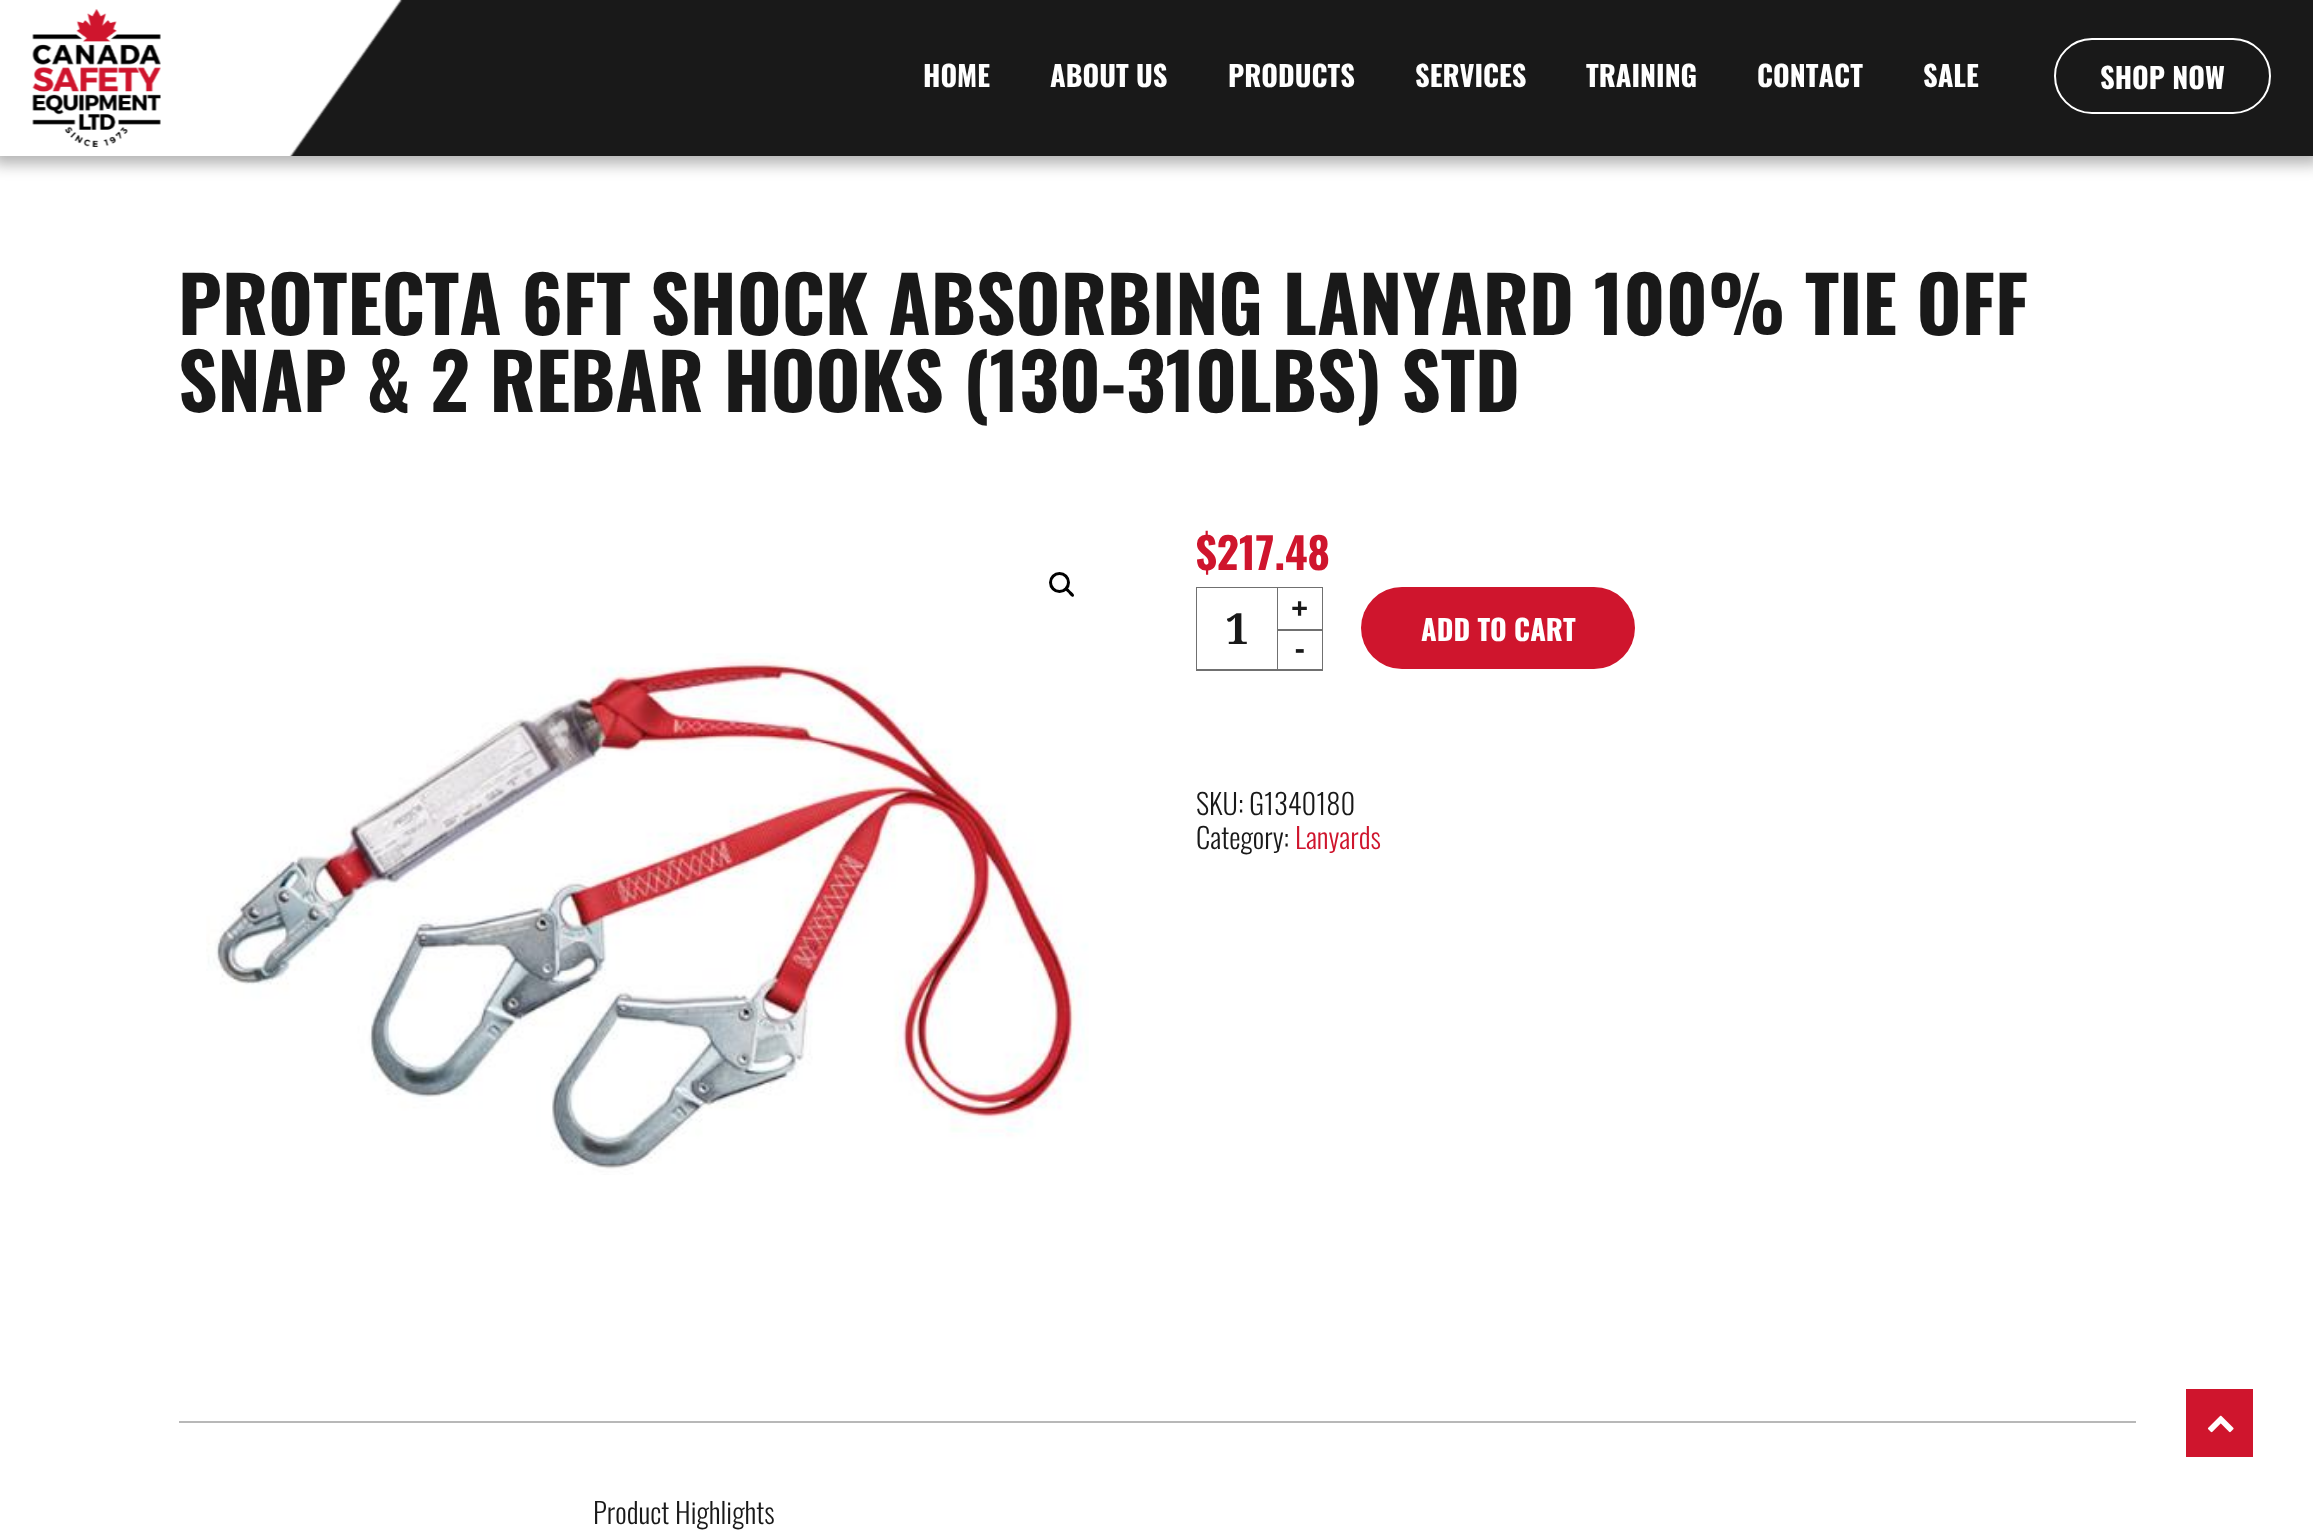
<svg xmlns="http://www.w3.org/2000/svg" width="2313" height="1531">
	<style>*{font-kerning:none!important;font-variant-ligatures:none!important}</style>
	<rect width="100%" height="100%" fill="#FFFFFF" />
	<rect x="-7" y="-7" width="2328" height="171" fill="#000000" fill-opacity="0.3" filter="blur(7.5px)" />
	<rect x="0" y="0" width="182" height="156" fill="#FFFFFF" />
	<image x="32" y="9" width="129" height="138" href="assets/img1.png" />
	<rect x="289" y="0" width="2024" height="156" fill="#191919" />
	<image x="182" y="0" width="221" height="156" href="assets/img2.png" />
	<g font-family="Oswald" font-size="28.5" font-weight="700" fill="#FFFFFF">
		<text x="923" y="87">HOME</text>
		<text x="1050" y="87">ABOUT US</text>
		<text x="1228" y="87">PRODUCTS</text>
		<text x="1415" y="87">SERVICES</text>
		<text x="1586" y="87">TRAINING</text>
		<text x="1757" y="87">CONTACT</text>
		<text x="1923" y="87">SALE</text>
	</g>
	<rect x="2055" y="39" width="215" height="74" rx="37" fill="none" stroke="#FFFFFF" stroke-width="2" />
	<text x="2100" y="89" font-family="Oswald" font-size="28.5" font-weight="700" fill="#FFFFFF">SHOP NOW</text>
	<g font-family="Oswald" font-size="76.95" font-weight="700" fill="#191919">
		<text x="178" y="335">PROTECTA 6FT SHOCK ABSORBING LANYARD 100% TIE OFF</text>
		<text x="178" y="412">SNAP &amp; 2 REBAR HOOKS (130-310LBS) STD</text>
	</g>
	<circle cx="1059.5" cy="582.5" r="9" fill="none" stroke="#000000" stroke-width="3" />
	<path d="M1065 588C1067 586 1069.5 590 1070.5 591C1071.5 592 1075.5 594.5 1073.5 596.5C1072 598 1069 594 1068.5 593C1067.5 592 1063.5 589.5 1065 588Z" fill="#000000" />
	<image x="206" y="653" width="883" height="522" href="assets/img3.png" />
	<text x="1196" y="570" font-family="Oswald" font-size="43" font-weight="700" fill="#CF152D">$217.48</text>
	<rect x="1197" y="588" width="125" height="82" fill="none" stroke="#707070" stroke-width="2" />
	<rect x="1278" y="588" width="44" height="41" fill="#FFFFFF" />
	<rect x="1278" y="629" width="44" height="2" fill="#707070" />
	<text x="1291" y="619" font-family="Noto Sans" font-size="30" font-weight="700" fill="#191919">+</text>
	<rect x="1277" y="588" width="1" height="81" fill="#707070" />
	<rect x="1197" y="588" width="80" height="81" fill="#FFFFFF" />
	<text x="1225" y="644" font-family="Noto Serif" font-size="43" font-weight="700" fill="#191919">1</text>
	<rect x="1321" y="631" width="1" height="38" fill="#FFFFFF" />
	<text x="1295" y="659" font-family="Noto Sans" font-size="30" font-weight="700" fill="#191919">-</text>
	<rect x="1361" y="587" width="274" height="82" rx="41" fill="#CF152D" />
	<text x="1421" y="641" font-family="Oswald" font-size="28.5" font-weight="700" fill="#FFFFFF">ADD TO CART</text>
	<g font-family="Oswald" font-size="28.5" font-weight="300" fill="#191919">
		<text x="1196" y="815">SKU: G1340180</text>
		<text x="1196" y="849">Category:</text>
	</g>
	<text x="1295" y="849" font-family="Oswald" font-size="28.5" font-weight="300" fill="#CF152D">Lanyards</text>
	<rect x="179" y="1421" width="1957" height="2" fill="#B8B8B8" />
	<text x="593" y="1524" font-family="Oswald" font-size="28.5" font-weight="300" fill="#191919">Product Highlights</text>
	<rect x="2186" y="1389" width="67" height="68" fill="#CF152D" />
	<image x="2207" y="1415" width="27" height="18" href="assets/img4.png" />
</svg>
